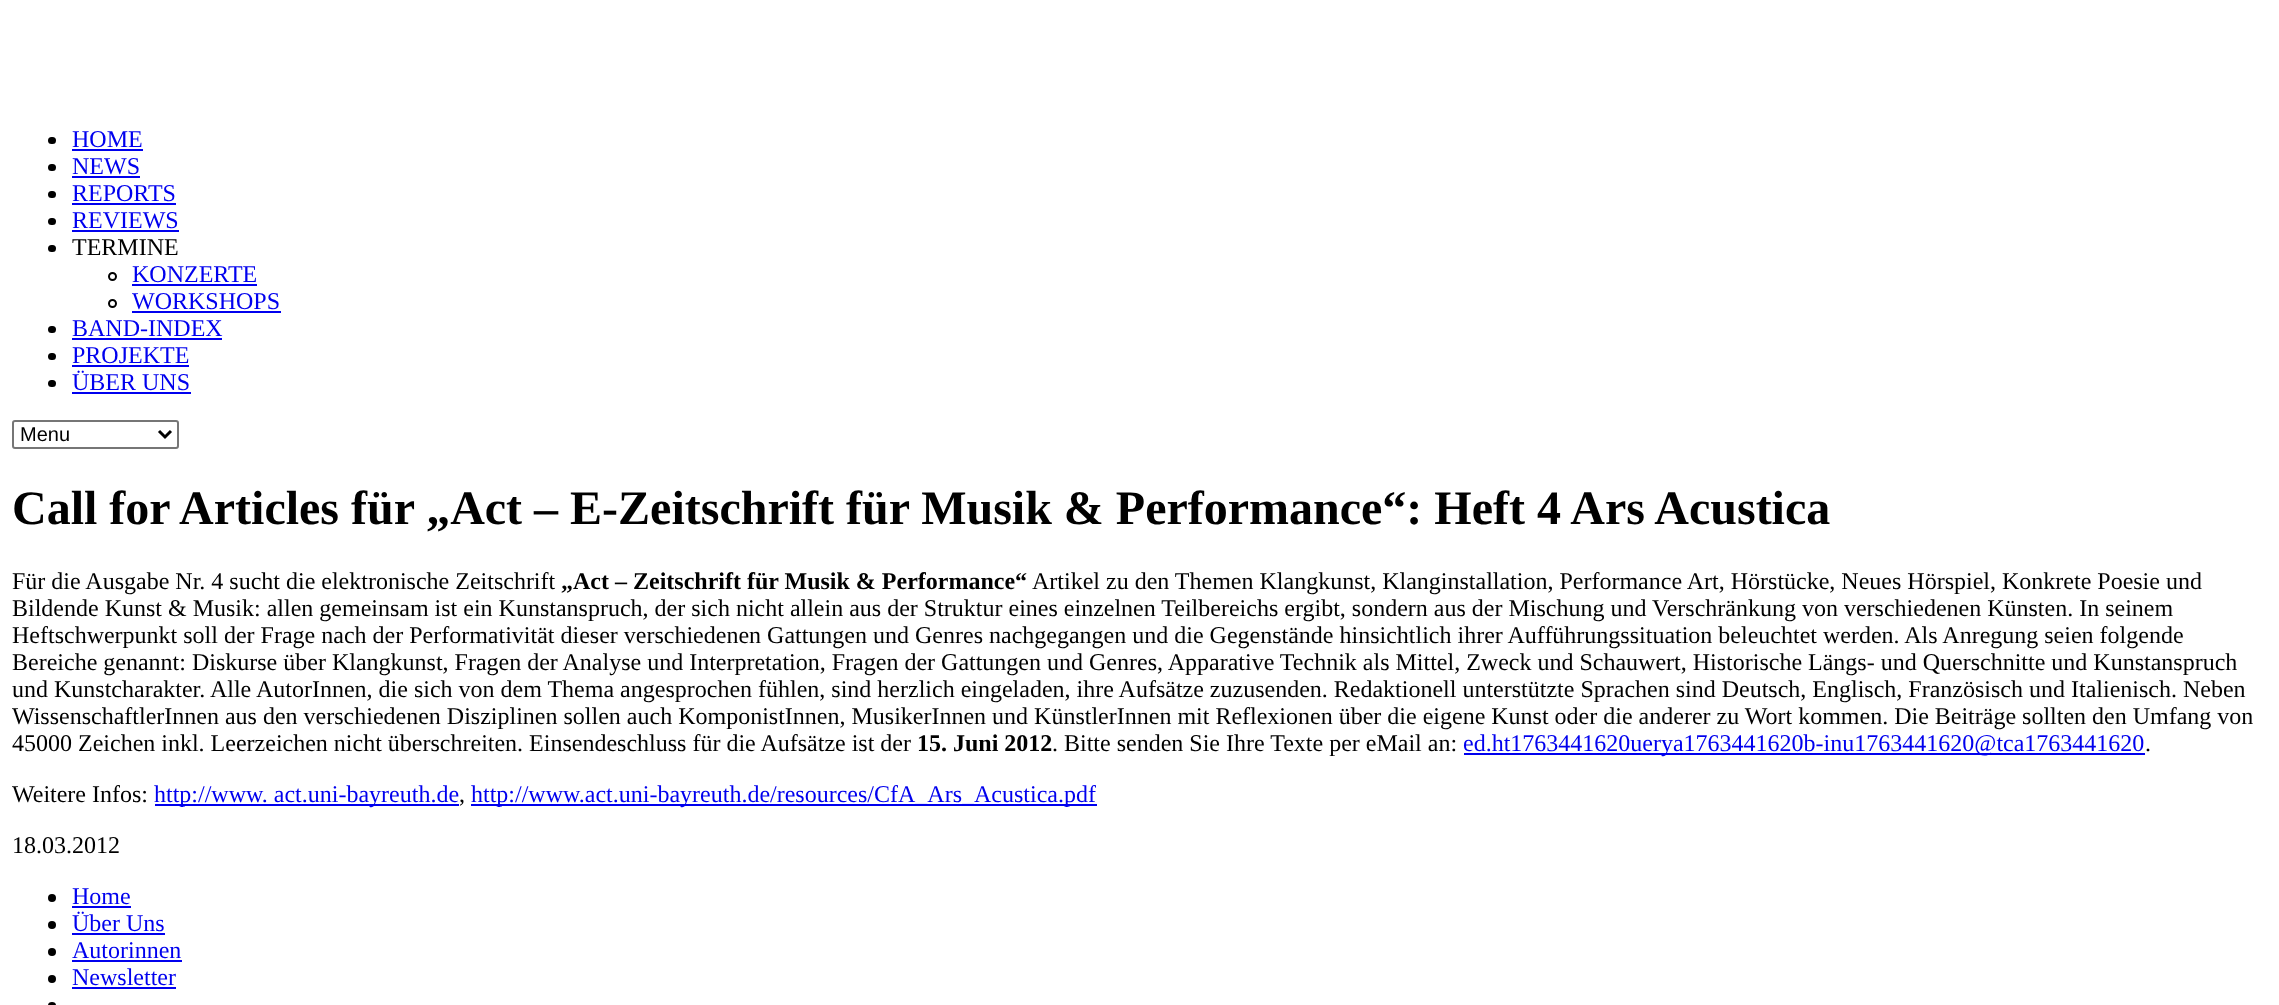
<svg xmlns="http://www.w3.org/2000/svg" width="2279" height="1005">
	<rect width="100%" height="100%" fill="#FFFFFF" />
	<rect x="48" y="137" width="8" height="7" rx="3.5" fill="#000000" />
	<text x="72" y="147" font-family="Liberation Serif" font-size="24" fill="#0000EE">HOME</text>
	<rect x="72" y="149" width="71" height="2" fill="#0000EE" />
	<rect x="48" y="164" width="8" height="7" rx="3.5" fill="#000000" />
	<text x="72" y="174" font-family="Liberation Serif" font-size="24" fill="#0000EE">NEWS</text>
	<rect x="72" y="176" width="68" height="2" fill="#0000EE" />
	<rect x="48" y="191" width="8" height="7" rx="3.5" fill="#000000" />
	<text x="72" y="201" font-family="Liberation Serif" font-size="24" fill="#0000EE">REPORTS</text>
	<rect x="72" y="203" width="104" height="2" fill="#0000EE" />
	<rect x="48" y="218" width="8" height="7" rx="3.5" fill="#000000" />
	<text x="72" y="228" font-family="Liberation Serif" font-size="24" fill="#0000EE">REVIEWS</text>
	<rect x="72" y="230" width="107" height="2" fill="#0000EE" />
	<rect x="48" y="245" width="8" height="7" rx="3.5" fill="#000000" />
	<text x="72" y="255" font-family="Liberation Serif" font-size="24" fill="#000000">TERMINE</text>
	<circle cx="112.5" cy="276.5" r="3.5" fill="none" stroke="#000000" stroke-width="2" />
	<text x="132" y="282" font-family="Liberation Serif" font-size="24" fill="#0000EE">KONZERTE</text>
	<rect x="132" y="284" width="125" height="2" fill="#0000EE" />
	<circle cx="112.5" cy="303.5" r="3.5" fill="none" stroke="#000000" stroke-width="2" />
	<text x="132" y="309" font-family="Liberation Serif" font-size="24" fill="#0000EE">WORKSHOPS</text>
	<rect x="132" y="311" width="149" height="2" fill="#0000EE" />
	<rect x="48" y="326" width="8" height="7" rx="3.5" fill="#000000" />
	<text x="72" y="336" font-family="Liberation Serif" font-size="24" fill="#0000EE">BAND-INDEX</text>
	<rect x="72" y="338" width="150" height="2" fill="#0000EE" />
	<rect x="48" y="353" width="8" height="7" rx="3.5" fill="#000000" />
	<text x="72" y="363" font-family="Liberation Serif" font-size="24" fill="#0000EE">PROJEKTE</text>
	<rect x="72" y="365" width="117" height="2" fill="#0000EE" />
	<rect x="48" y="380" width="8" height="7" rx="3.5" fill="#000000" />
	<text x="72" y="390" font-family="Liberation Serif" font-size="24" fill="#0000EE">ÜBER UNS</text>
	<rect x="72" y="392" width="119" height="2" fill="#0000EE" />
	<rect x="13" y="421" width="165" height="27" rx="2" fill="none" stroke="#767676" stroke-width="2" />
	<path d="M159 431L165 437L171 431" fill="none" stroke="#000000" stroke-width="3" />
	<text x="20" y="441" font-family="Liberation Sans" font-size="20" fill="#000000">Menu</text>
	<text x="12" y="524" font-family="Liberation Serif" font-size="48" font-weight="700" fill="#000000">Call for Articles für „Act – E-Zeitschrift für Musik &amp; Performance“: Heft 4 Ars Acustica</text>
	<text x="12" y="589" font-family="Liberation Serif" font-size="24" fill="#000000">Für die Ausgabe Nr. 4 sucht die elektronische Zeitschrift</text>
	<text x="561" y="589" font-family="Liberation Serif" font-size="24" font-weight="700" fill="#000000">„Act – Zeitschrift für Musik &amp; Performance“</text>
	<g font-family="Liberation Serif" font-size="24" fill="#000000">
		<text x="1032" y="589">Artikel zu den Themen Klangkunst, Klanginstallation, Performance Art, Hörstücke, Neues Hörspiel, Konkrete Poesie und</text>
		<text x="12" y="616">Bildende Kunst &amp; Musik: allen gemeinsam ist ein Kunstanspruch, der sich nicht allein aus der Struktur eines einzelnen Teilbereichs ergibt, sondern aus der Mischung und Verschränkung von verschiedenen Künsten. In seinem</text>
		<text x="12" y="643">Heftschwerpunkt soll der Frage nach der Performativität dieser verschiedenen Gattungen und Genres nachgegangen und die Gegenstände hinsichtlich ihrer Aufführungssituation beleuchtet werden. Als Anregung seien folgende</text>
		<text x="12" y="670">Bereiche genannt: Diskurse über Klangkunst, Fragen der Analyse und Interpretation, Fragen der Gattungen und Genres, Apparative Technik als Mittel, Zweck und Schauwert, Historische Längs- und Querschnitte und Kunstanspruch</text>
		<text x="12" y="697">und Kunstcharakter. Alle AutorInnen, die sich von dem Thema angesprochen fühlen, sind herzlich eingeladen, ihre Aufsätze zuzusenden. Redaktionell unterstützte Sprachen sind Deutsch, Englisch, Französisch und Italienisch. Neben</text>
		<text x="12" y="724">WissenschaftlerInnen aus den verschiedenen Disziplinen sollen auch KomponistInnen, MusikerInnen und KünstlerInnen mit Reflexionen über die eigene Kunst oder die anderer zu Wort kommen. Die Beiträge sollten den Umfang von</text>
		<text x="12" y="751">45000 Zeichen inkl. Leerzeichen nicht überschreiten. Einsendeschluss für die Aufsätze ist der</text>
	</g>
	<text x="917" y="751" font-family="Liberation Serif" font-size="24" font-weight="700" fill="#000000">15. Juni 2012</text>
	<text x="1052" y="751" font-family="Liberation Serif" font-size="24" fill="#000000">. Bitte senden Sie Ihre Texte per eMail an:</text>
	<rect x="1464" y="753" width="681" height="2" fill="#0000EE" />
	<text x="1463" y="751" font-family="Liberation Serif" font-size="24" fill="#0000EE">ed.ht1763441620uerya1763441620b-inu1763441620@tca1763441620</text>
	<g font-family="Liberation Serif" font-size="24" fill="#000000">
		<text x="2145" y="751">.</text>
		<text x="12" y="802">Weitere Infos:</text>
	</g>
	<rect x="155" y="804" width="304" height="2" fill="#0000EE" />
	<text x="154" y="802" font-family="Liberation Serif" font-size="24" fill="#0000EE">http://www. act.uni-bayreuth.de</text>
	<text x="459" y="802" font-family="Liberation Serif" font-size="24" fill="#000000">,</text>
	<rect x="471" y="804" width="626" height="2" fill="#0000EE" />
	<text x="471" y="802" font-family="Liberation Serif" font-size="24" fill="#0000EE">http://www.act.uni-bayreuth.de/resources/CfA_Ars_Acustica.pdf</text>
	<text x="12" y="853" font-family="Liberation Serif" font-size="24" fill="#000000">18.03.2012</text>
	<circle cx="52" cy="898" r="4" fill="#000000" />
	<text x="72" y="904" font-family="Liberation Serif" font-size="24" fill="#0000EE">Home</text>
	<rect x="72" y="906" width="59" height="2" fill="#0000EE" />
	<circle cx="52" cy="925" r="4" fill="#000000" />
	<text x="72" y="931" font-family="Liberation Serif" font-size="24" fill="#0000EE">Über Uns</text>
	<rect x="72" y="933" width="93" height="2" fill="#0000EE" />
	<circle cx="52" cy="952" r="4" fill="#000000" />
	<text x="72" y="958" font-family="Liberation Serif" font-size="24" fill="#0000EE">Autorinnen</text>
	<rect x="72" y="960" width="110" height="2" fill="#0000EE" />
	<circle cx="52" cy="979" r="4" fill="#000000" />
	<text x="72" y="985" font-family="Liberation Serif" font-size="24" fill="#0000EE">Newsletter</text>
	<rect x="72" y="987" width="104" height="2" fill="#0000EE" />
	<rect x="48" y="1002" width="8" height="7" rx="4" fill="#000000" />
</svg>
